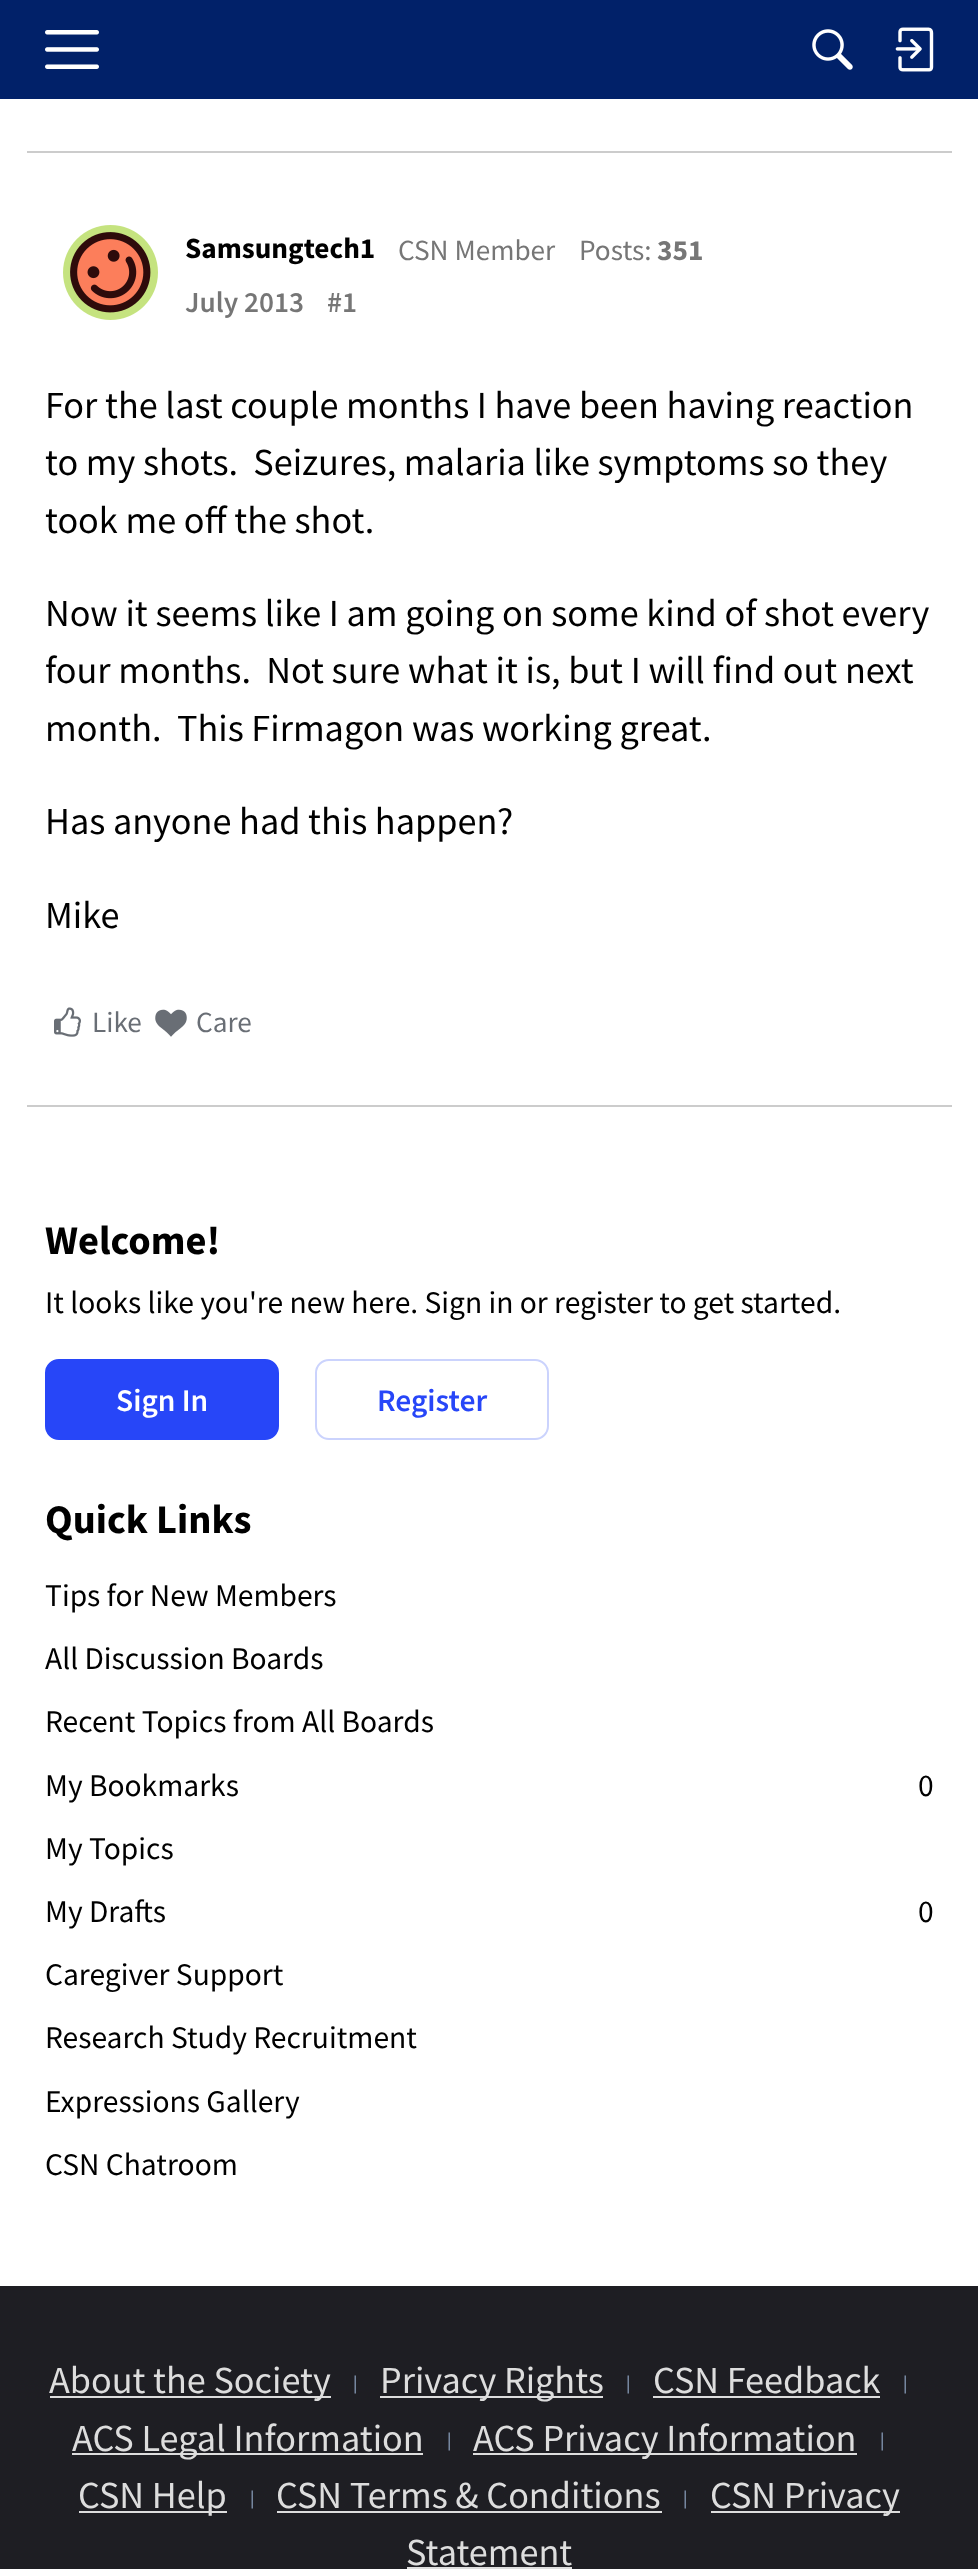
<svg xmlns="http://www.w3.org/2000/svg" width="978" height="2569">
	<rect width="100%" height="100%" fill="#FFFFFF" />
	<rect x="0" y="0" width="978" height="99" fill="#012169" />
	<image x="45" y="30" width="54" height="39" href="assets/img1.png" />
	<image x="812" y="29" width="41" height="41" href="assets/img2.png" />
	<image x="895" y="27" width="39" height="45" href="assets/img3.png" />
	<rect x="27" y="151" width="925" height="2" fill="#CCCCCC" />
	<image x="63" y="225" width="95" height="95" href="assets/img4.png" />
	<text x="185" y="258" font-family="Source Sans Pro" font-size="29.25" font-weight="700" fill="#000000">Samsungtech1</text>
	<g font-family="Source Sans Pro" font-size="29.25" fill="#767676">
		<text x="398" y="260">CSN Member</text>
		<text x="579" y="260">Posts:</text>
	</g>
	<text x="657" y="260" font-family="Source Sans Pro" font-size="29.25" font-weight="700" fill="#767676">351</text>
	<g font-family="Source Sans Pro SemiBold" font-size="29.25" font-weight="600" fill="#767676">
		<text x="185" y="312">July 2013</text>
		<text x="327" y="312">#1</text>
	</g>
	<g font-family="Source Sans Pro" font-size="38.25" fill="#000000">
		<text x="45" y="418">For the last couple months I have been having reaction</text>
		<text x="45" y="475" xml:space="preserve">to my shots.  Seizures, malaria like symptoms so they</text>
		<text x="45" y="533">took me off the shot.</text>
		<text x="45" y="626">Now it seems like I am going on some kind of shot every</text>
		<text x="45" y="683" xml:space="preserve">four months.  Not sure what it is, but I will find out next</text>
		<text x="45" y="741" xml:space="preserve">month.  This Firmagon was working great.</text>
		<text x="45" y="834">Has anyone had this happen?</text>
		<text x="45" y="928">Mike</text>
	</g>
	<image x="54" y="1007" width="27" height="30" href="assets/img5.png" />
	<text x="92" y="1032" font-family="Source Sans Pro" font-size="29.25" fill="#696E75">Like</text>
	<image x="155" y="1009" width="32" height="28" href="assets/img6.png" />
	<text x="196" y="1032" font-family="Source Sans Pro" font-size="29.25" fill="#696E75">Care</text>
	<rect x="27" y="1105" width="925" height="2" fill="#CCCCCC" />
	<text x="45" y="1254" font-family="Source Sans Pro" font-size="40.5" font-weight="700" fill="#000000">Welcome!</text>
	<text x="45" y="1313" font-family="Source Sans Pro" font-size="31.5" fill="#000000">It looks like you're new here. Sign in or register to get started.</text>
	<rect x="46" y="1360" width="232" height="79" rx="13" fill="#2746F8" stroke="#2746F8" stroke-width="2" />
	<text x="116" y="1411" font-family="Source Sans Pro SemiBold" font-size="31.5" font-weight="600" fill="#FFFFFF">Sign In</text>
	<rect x="316" y="1360" width="232" height="79" rx="13" fill="none" stroke="#CBD3FD" stroke-width="2" />
	<text x="377" y="1411" font-family="Source Sans Pro SemiBold" font-size="31.5" font-weight="600" fill="#2746F8">Register</text>
	<text x="45" y="1533" font-family="Source Sans Pro" font-size="40.5" font-weight="700" fill="#000000">Quick Links</text>
	<g font-family="Source Sans Pro" font-size="31.5" fill="#000000">
		<text x="45" y="1606">Tips for New Members</text>
		<text x="45" y="1669">All Discussion Boards</text>
		<text x="45" y="1732">Recent Topics from All Boards</text>
		<text x="45" y="1796">My Bookmarks</text>
		<text x="918" y="1796">0</text>
		<text x="45" y="1859">My Topics</text>
		<text x="45" y="1922">My Drafts</text>
		<text x="918" y="1922">0</text>
		<text x="45" y="1985">Caregiver Support</text>
		<text x="45" y="2048">Research Study Recruitment</text>
		<text x="45" y="2112">Expressions Gallery</text>
		<text x="45" y="2175">CSN Chatroom</text>
	</g>
	<rect x="0" y="2286" width="978" height="283" fill="#1E1E23" />
	<rect x="50" y="2396" width="281" height="2" fill="#DDDDDD" />
	<text x="49" y="2393" font-family="Source Sans Pro" font-size="38.25" fill="#DDDDDD">About the Society</text>
	<text x="353" y="2389" font-family="Source Sans Pro" font-size="18" fill="#97AECE">|</text>
	<rect x="380" y="2396" width="223" height="2" fill="#DDDDDD" />
	<text x="380" y="2393" font-family="Source Sans Pro" font-size="38.25" fill="#DDDDDD">Privacy Rights</text>
	<text x="626" y="2389" font-family="Source Sans Pro" font-size="18" fill="#97AECE">|</text>
	<text x="653" y="2393" font-family="Source Sans Pro" font-size="38.25" fill="#DDDDDD">CSN Feedback</text>
	<rect x="653" y="2396" width="227" height="2" fill="#DDDDDD" />
	<text x="903" y="2389" font-family="Source Sans Pro" font-size="18" fill="#97AECE">|</text>
	<rect x="72" y="2453" width="351" height="2" fill="#DDDDDD" />
	<text x="72" y="2451" font-family="Source Sans Pro" font-size="38.25" fill="#DDDDDD">ACS Legal Information</text>
	<text x="447" y="2446" font-family="Source Sans Pro" font-size="18" fill="#97AECE">|</text>
	<rect x="473" y="2453" width="384" height="2" fill="#DDDDDD" />
	<text x="473" y="2451" font-family="Source Sans Pro" font-size="38.25" fill="#DDDDDD">ACS Privacy Information</text>
	<text x="880" y="2446" font-family="Source Sans Pro" font-size="18" fill="#97AECE">|</text>
	<rect x="79" y="2511" width="148" height="2" fill="#DDDDDD" />
	<text x="78" y="2508" font-family="Source Sans Pro" font-size="38.25" fill="#DDDDDD">CSN Help</text>
	<text x="250" y="2504" font-family="Source Sans Pro" font-size="18" fill="#97AECE">|</text>
	<text x="276" y="2508" font-family="Source Sans Pro" font-size="38.25" fill="#DDDDDD">CSN Terms &amp; Conditions</text>
	<rect x="277" y="2511" width="385" height="2" fill="#DDDDDD" />
	<text x="683" y="2504" font-family="Source Sans Pro" font-size="18" fill="#97AECE">|</text>
	<rect x="711" y="2511" width="189" height="2" fill="#DDDDDD" />
	<g font-family="Source Sans Pro" font-size="38.25" fill="#DDDDDD">
		<text x="710" y="2508">CSN Privacy</text>
		<text x="406" y="2565">Statement</text>
	</g>
	<rect x="407" y="2567" width="165" height="2" fill="#DDDDDD" />
</svg>
